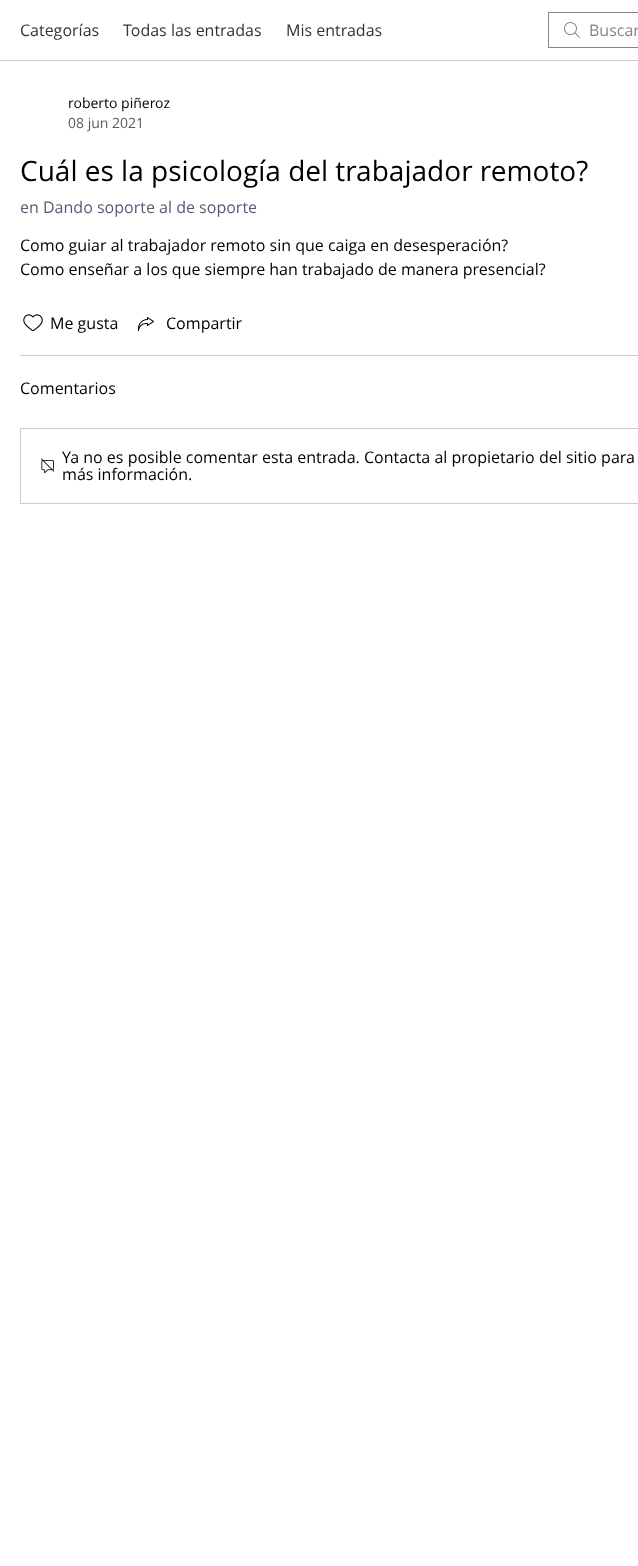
<svg xmlns="http://www.w3.org/2000/svg" width="638" height="1566">
	<rect width="100%" height="100%" fill="#FFFFFF" />
	<rect x="0" y="60" width="638" height="1" fill="#CCCCCC" />
	<g font-family="Open Sans" font-size="16" fill="#333333">
		<text x="20" y="36">Categorías</text>
		<text x="123" y="36">Todas las entradas</text>
		<text x="286" y="36">Mis entradas</text>
	</g>
	<image x="564" y="22" width="16" height="16" href="assets/img1.png" />
	<rect x="548.5" y="12.5" width="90" height="35" fill="none" stroke="#858585" />
	<text x="589" y="36" font-family="Open Sans" font-size="16" fill="#858585">Buscar</text>
	<text x="68" y="108" font-family="Open Sans" font-size="14" fill="#000000">roberto piñeroz</text>
	<text x="68" y="128" font-family="Open Sans" font-size="14" fill="#5C5C5C">08 jun 2021</text>
	<text x="20" y="181" font-family="Open Sans" font-size="28" fill="#000000">Cuál es la psicología del trabajador remoto?</text>
	<text x="20" y="213" font-family="Open Sans" font-size="16" fill="#545C74">en Dando soporte al de soporte</text>
	<g font-family="Open Sans" font-size="16" fill="#000000">
		<text x="20" y="251">Como guiar al trabajador remoto sin que caiga en desesperación?</text>
		<text x="20" y="275">Como enseñar a los que siempre han trabajado de manera presencial?</text>
	</g>
	<image x="23" y="314" width="20" height="18" href="assets/img2.png" />
	<text x="50" y="329" font-family="Open Sans" font-size="16" fill="#000000">Me gusta</text>
	<image x="138" y="317" width="16" height="14" href="assets/img3.png" />
	<text x="166" y="329" font-family="Open Sans" font-size="16" fill="#000000">Compartir</text>
	<rect x="20" y="355" width="618" height="1" fill="#CCCCCC" />
	<text x="20" y="394" font-family="Open Sans" font-size="16" fill="#000000">Comentarios</text>
	<rect x="20.5" y="428.5" width="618" height="75" fill="none" stroke="#CCCCCC" />
	<image x="41" y="458" width="13" height="15" href="assets/img4.png" />
	<g font-family="Open Sans" font-size="16" fill="#000000">
		<text x="62" y="463">Ya no es posible comentar esta entrada. Contacta al propietario del sitio para</text>
		<text x="62" y="480">más información.</text>
	</g>
</svg>
